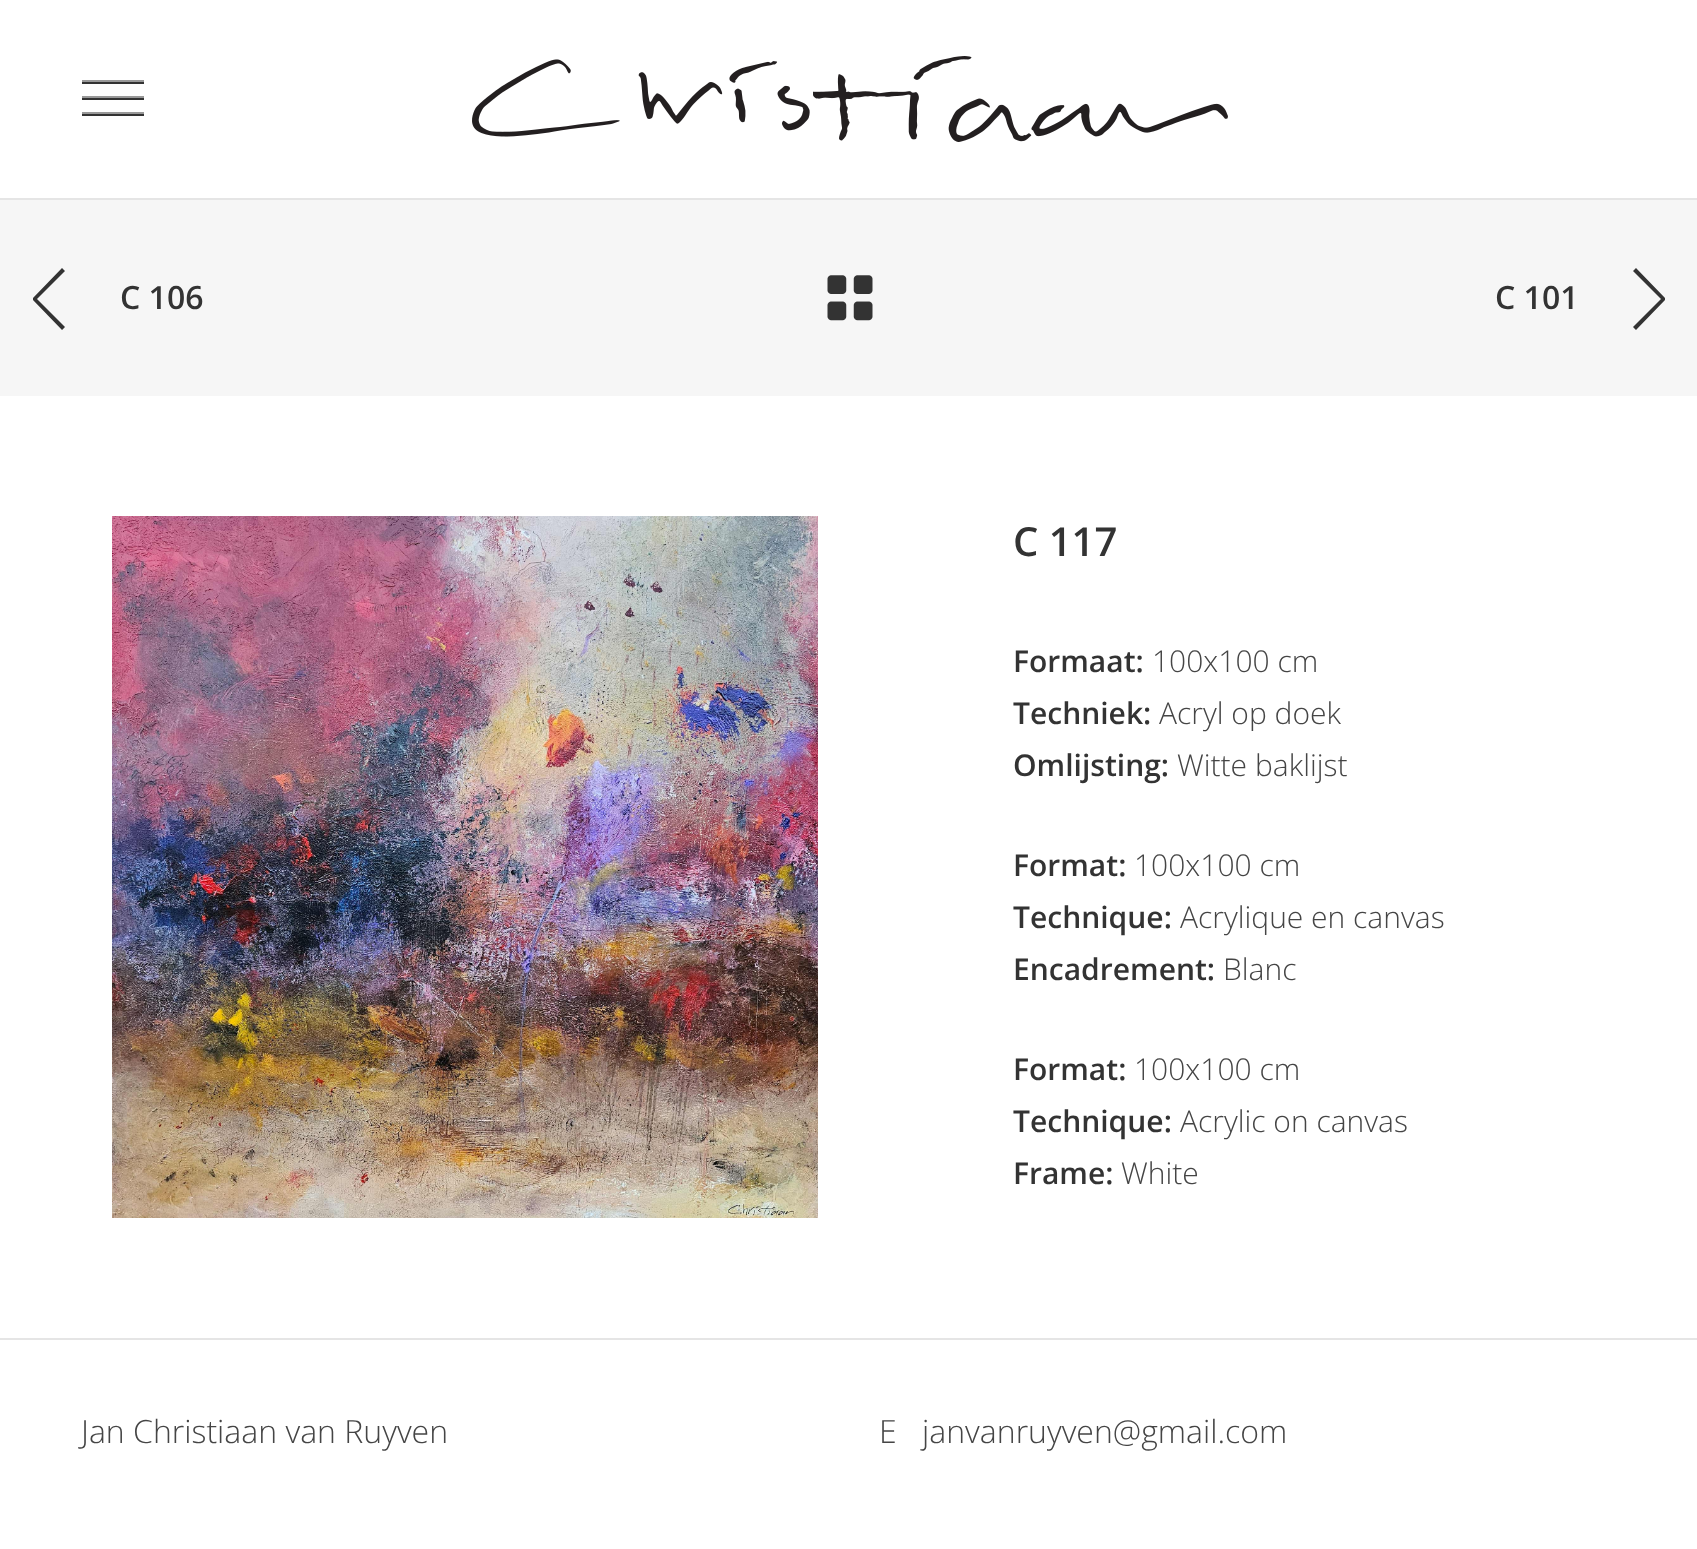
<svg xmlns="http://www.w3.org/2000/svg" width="1697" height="1549">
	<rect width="100%" height="100%" fill="#FFFFFF" />
	<rect x="0" y="198" width="1697" height="2" fill="#E5E5E5" />
	<rect x="82" y="82" width="62" height="2" fill="#333333" />
	<rect x="82" y="80" width="62" height="2" fill="#999999" />
	<rect x="82" y="98" width="62" height="2" fill="#333333" />
	<rect x="82" y="96" width="62" height="2" fill="#999999" />
	<rect x="82" y="114" width="62" height="2" fill="#333333" />
	<rect x="82" y="112" width="62" height="2" fill="#999999" />
	<image x="472" y="56" width="756" height="86" href="assets/img1.png" />
	<rect x="0" y="200" width="1697" height="196" fill="#F6F6F6" />
	<path d="M62 268L65 271L37 299L65 327L62 330L33 300V298Z" fill="#333333" />
	<text x="120" y="309" font-family="Open Sans" font-size="32" font-weight="600" fill="#333333">C 106</text>
	<image x="827" y="275" width="46" height="46" href="assets/img2.png" />
	<text x="1495" y="309" font-family="Open Sans" font-size="32" font-weight="600" fill="#333333">C 101</text>
	<path d="M1665 298V300L1636 330L1633 327L1661 299L1633 271L1636 268Z" fill="#333333" />
	<image x="112" y="516" width="706" height="702" href="assets/img3.png" />
	<text x="1013" y="556" font-family="Open Sans" font-size="40" font-weight="600" fill="#333333">C 117</text>
	<text x="1013" y="672" font-family="Open Sans" font-size="30" font-weight="600" fill="#333333">Formaat:</text>
	<text x="1152" y="672" font-family="Open Sans" font-size="30" font-weight="300" fill="#454545">100x100 cm</text>
	<text x="1013" y="724" font-family="Open Sans" font-size="30" font-weight="600" fill="#333333">Techniek:</text>
	<text x="1159" y="724" font-family="Open Sans" font-size="30" font-weight="300" fill="#454545">Acryl op doek</text>
	<text x="1013" y="776" font-family="Open Sans" font-size="30" font-weight="600" fill="#333333">Omlijsting:</text>
	<text x="1177" y="776" font-family="Open Sans" font-size="30" font-weight="300" fill="#454545">Witte baklijst</text>
	<text x="1013" y="876" font-family="Open Sans" font-size="30" font-weight="600" fill="#333333">Format:</text>
	<text x="1134" y="876" font-family="Open Sans" font-size="30" font-weight="300" fill="#454545">100x100 cm</text>
	<text x="1013" y="928" font-family="Open Sans" font-size="30" font-weight="600" fill="#333333">Technique:</text>
	<text x="1180" y="928" font-family="Open Sans" font-size="30" font-weight="300" fill="#454545">Acrylique en canvas</text>
	<text x="1013" y="980" font-family="Open Sans" font-size="30" font-weight="600" fill="#333333">Encadrement:</text>
	<text x="1223" y="980" font-family="Open Sans" font-size="30" font-weight="300" fill="#454545">Blanc</text>
	<text x="1013" y="1080" font-family="Open Sans" font-size="30" font-weight="600" fill="#333333">Format:</text>
	<text x="1134" y="1080" font-family="Open Sans" font-size="30" font-weight="300" fill="#454545">100x100 cm</text>
	<text x="1013" y="1132" font-family="Open Sans" font-size="30" font-weight="600" fill="#333333">Technique:</text>
	<text x="1180" y="1132" font-family="Open Sans" font-size="30" font-weight="300" fill="#454545">Acrylic on canvas</text>
	<text x="1013" y="1184" font-family="Open Sans" font-size="30" font-weight="600" fill="#333333">Frame:</text>
	<text x="1121" y="1184" font-family="Open Sans" font-size="30" font-weight="300" fill="#454545">White</text>
	<rect x="0" y="1338" width="1697" height="2" fill="#E5E5E5" />
	<g font-family="Open Sans" font-size="32" font-weight="300" fill="#454545">
		<text x="81" y="1443">Jan Christiaan van Ruyven</text>
		<text x="879" y="1443">E</text>
		<text x="922" y="1443">janvanruyven@gmail.com</text>
	</g>
</svg>
